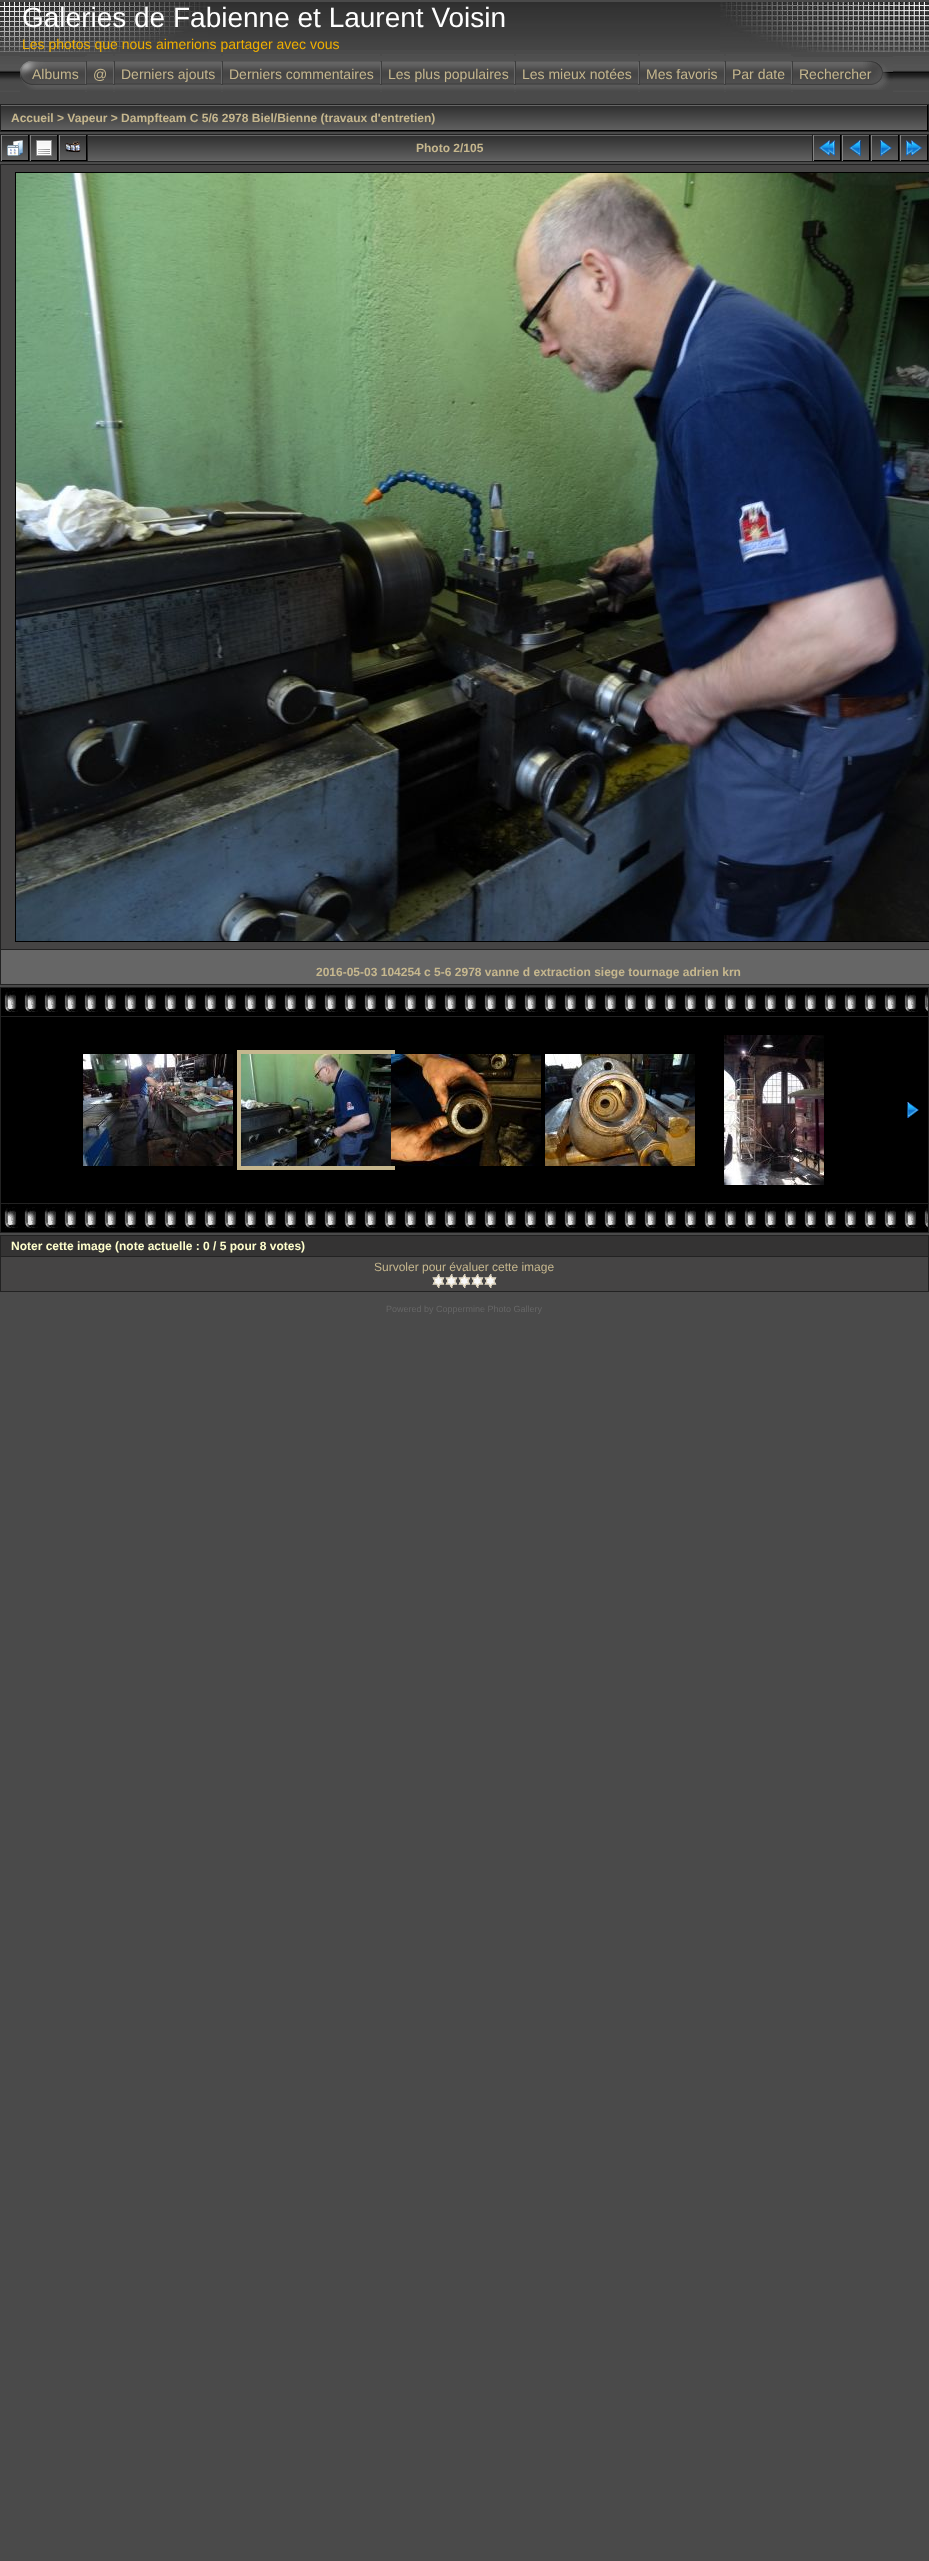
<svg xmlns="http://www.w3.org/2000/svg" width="929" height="2561">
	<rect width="100%" height="100%" fill="#4A4A4A" />
	<image x="208" y="2" width="512" height="48" href="assets/img1.png" />
	<image x="0" y="2" width="208" height="50" href="assets/img2.png" />
	<image x="720" y="2" width="209" height="50" href="assets/img3.png" />
	<text x="22" y="27" font-family="Liberation Sans" font-size="28" fill="#FFFFFF">Galeries de Fabienne et Laurent Voisin</text>
	<text x="22" y="49" font-family="Liberation Sans" font-size="14" fill="#F0AF00">Les photos que nous aimerions partager avec vous</text>
	<image x="0" y="56" width="929" height="36" href="assets/img4.png" />
	<rect x="20" y="56" width="65" height="36" fill="#4A4A4A" />
	<image x="20" y="57" width="65" height="33" href="assets/img5.png" />
	<text x="32" y="79" font-family="Liberation Sans" font-size="14" fill="#C6B78E">Albums</text>
	<image x="85" y="61" width="2" height="29" href="assets/img6.png" />
	<rect x="87" y="91" width="26" height="1" fill="#4A4A4A" />
	<image x="87" y="54" width="26" height="36" href="assets/img7.png" />
	<text x="93" y="79" font-family="Liberation Sans" font-size="14" fill="#C6B78E">@</text>
	<image x="113" y="61" width="2" height="29" href="assets/img6.png" />
	<rect x="115" y="91" width="106" height="1" fill="#4A4A4A" />
	<image x="115" y="54" width="106" height="36" href="assets/img8.png" />
	<text x="121" y="79" font-family="Liberation Sans" font-size="14" fill="#C6B78E">Derniers ajouts</text>
	<image x="221" y="61" width="2" height="29" href="assets/img6.png" />
	<rect x="223" y="91" width="157" height="1" fill="#4A4A4A" />
	<image x="223" y="54" width="157" height="36" href="assets/img9.png" />
	<text x="229" y="79" font-family="Liberation Sans" font-size="14" fill="#C6B78E">Derniers commentaires</text>
	<image x="380" y="61" width="2" height="29" href="assets/img6.png" />
	<rect x="382" y="91" width="132" height="1" fill="#4A4A4A" />
	<image x="382" y="54" width="132" height="36" href="assets/img10.png" />
	<text x="388" y="79" font-family="Liberation Sans" font-size="14" fill="#C6B78E">Les plus populaires</text>
	<image x="514" y="61" width="2" height="29" href="assets/img6.png" />
	<rect x="516" y="91" width="122" height="1" fill="#4A4A4A" />
	<image x="516" y="54" width="122" height="36" href="assets/img11.png" />
	<text x="522" y="79" font-family="Liberation Sans" font-size="14" fill="#C6B78E">Les mieux notées</text>
	<image x="638" y="61" width="2" height="29" href="assets/img6.png" />
	<rect x="640" y="91" width="84" height="1" fill="#4A4A4A" />
	<image x="640" y="54" width="84" height="36" href="assets/img12.png" />
	<text x="646" y="79" font-family="Liberation Sans" font-size="14" fill="#C6B78E">Mes favoris</text>
	<image x="724" y="61" width="2" height="29" href="assets/img6.png" />
	<rect x="726" y="91" width="65" height="1" fill="#4A4A4A" />
	<image x="726" y="54" width="65" height="36" href="assets/img13.png" />
	<text x="732" y="79" font-family="Liberation Sans" font-size="14" fill="#C6B78E">Par date</text>
	<image x="791" y="61" width="2" height="29" href="assets/img6.png" />
	<rect x="793" y="56" width="100" height="36" fill="#4A4A4A" />
	<image x="793" y="57" width="100" height="33" href="assets/img14.png" />
	<text x="799" y="79" font-family="Liberation Sans" font-size="14" fill="#C6B78E">Rechercher</text>
	<rect x="0" y="104" width="929" height="28" fill="#222222" />
	<image x="1" y="105" width="926" height="25" href="assets/img15.png" />
	<rect x="927" y="105" width="1" height="26" fill="#000000" />
	<rect x="1" y="130" width="927" height="1" fill="#000000" />
	<text x="11" y="122" font-family="Liberation Sans" font-size="12" font-weight="700" fill="#C6B78E">Accueil &gt; Vapeur &gt; Dampfteam C 5/6 2978 Biel/Bienne (travaux d'entretien)</text>
	<rect x="0" y="134" width="929" height="28" fill="#222222" />
	<image x="2" y="135" width="26" height="25" href="assets/img16.png" />
	<rect x="28" y="135" width="1" height="26" fill="#000000" />
	<rect x="1" y="160" width="28" height="1" fill="#000000" />
	<rect x="1" y="135" width="1" height="26" fill="#838383" />
	<image x="7" y="140" width="16" height="16" href="assets/img17.png" />
	<image x="31" y="135" width="26" height="25" href="assets/img16.png" />
	<rect x="57" y="135" width="1" height="26" fill="#000000" />
	<rect x="30" y="160" width="28" height="1" fill="#000000" />
	<rect x="30" y="135" width="1" height="26" fill="#838383" />
	<image x="36" y="140" width="16" height="16" href="assets/img18.png" />
	<image x="60" y="135" width="26" height="25" href="assets/img16.png" />
	<rect x="86" y="135" width="1" height="26" fill="#000000" />
	<rect x="59" y="160" width="28" height="1" fill="#000000" />
	<rect x="59" y="135" width="1" height="26" fill="#838383" />
	<image x="65" y="141" width="16" height="12" href="assets/img19.png" />
	<image x="88" y="135" width="724" height="26" href="assets/img20.png" />
	<text x="416" y="152" font-family="Liberation Sans" font-size="12" font-weight="700" fill="#C6B78E">Photo 2/105</text>
	<image x="814" y="135" width="26" height="25" href="assets/img16.png" />
	<rect x="840" y="135" width="1" height="26" fill="#000000" />
	<rect x="813" y="160" width="28" height="1" fill="#000000" />
	<rect x="813" y="135" width="1" height="26" fill="#838383" />
	<image x="819" y="140" width="16" height="16" href="assets/img21.png" />
	<image x="843" y="135" width="26" height="25" href="assets/img16.png" />
	<rect x="869" y="135" width="1" height="26" fill="#000000" />
	<rect x="842" y="160" width="28" height="1" fill="#000000" />
	<rect x="842" y="135" width="1" height="26" fill="#838383" />
	<image x="849" y="140" width="12" height="16" href="assets/img22.png" />
	<image x="872" y="135" width="26" height="25" href="assets/img16.png" />
	<rect x="898" y="135" width="1" height="26" fill="#000000" />
	<rect x="871" y="160" width="28" height="1" fill="#000000" />
	<rect x="871" y="135" width="1" height="26" fill="#838383" />
	<image x="880" y="140" width="12" height="16" href="assets/img23.png" />
	<image x="901" y="135" width="26" height="25" href="assets/img16.png" />
	<rect x="927" y="135" width="1" height="26" fill="#000000" />
	<rect x="900" y="160" width="28" height="1" fill="#000000" />
	<rect x="900" y="135" width="1" height="26" fill="#838383" />
	<image x="906" y="140" width="16" height="16" href="assets/img24.png" />
	<rect x="0" y="164" width="929" height="821" fill="#222222" />
	<rect x="1" y="165" width="928" height="784" fill="#454444" />
	<rect x="15.5" y="172.5" width="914" height="769" fill="none" stroke="#000000" />
	<image x="16" y="173" width="913" height="768" href="assets/img25.png" />
	<rect x="1" y="950" width="928" height="34" fill="#666666" />
	<text x="316" y="976" font-family="Liberation Sans" font-size="12" font-weight="700" fill="#C6B78E">2016-05-03 104254 c 5-6 2978 vanne d extraction siege tournage adrien krn</text>
	<rect x="0" y="987" width="929" height="246" fill="#222222" />
	<rect x="1" y="988" width="927" height="28" fill="#000000" />
	<image x="4" y="988" width="924" height="24" href="assets/img26.png" />
	<rect x="1" y="1017" width="927" height="186" fill="#000000" />
	<image x="83" y="1054" width="150" height="112" href="assets/img27.png" />
	<rect x="239" y="1052" width="154" height="116" fill="none" stroke="#C6B78E" stroke-width="4" />
	<image x="241" y="1054" width="150" height="112" href="assets/img28.png" />
	<image x="391" y="1054" width="150" height="112" href="assets/img29.png" />
	<image x="545" y="1054" width="150" height="112" href="assets/img30.png" />
	<image x="724" y="1035" width="100" height="150" href="assets/img31.png" />
	<image x="907" y="1102" width="12" height="16" href="assets/img32.png" />
	<rect x="1" y="1204" width="927" height="28" fill="#000000" />
	<image x="4" y="1204" width="924" height="24" href="assets/img26.png" />
	<rect x="0" y="1235" width="929" height="57" fill="#222222" />
	<rect x="1" y="1236" width="927" height="20" fill="#343333" />
	<text x="11" y="1250" font-family="Liberation Sans" font-size="12" font-weight="700" fill="#FFFFCC">Noter cette image (note actuelle : 0 / 5 pour 8 votes)</text>
	<rect x="1" y="1257" width="927" height="34" fill="#454444" />
	<text x="374" y="1271" font-family="Liberation Sans" font-size="12" fill="#C6B78E">Survoler pour évaluer cette image</text>
	<image x="432" y="1274" width="13" height="14" href="assets/img33.png" />
	<image x="445" y="1274" width="13" height="14" href="assets/img33.png" />
	<image x="458" y="1274" width="13" height="14" href="assets/img33.png" />
	<image x="471" y="1274" width="13" height="14" href="assets/img33.png" />
	<image x="484" y="1274" width="13" height="14" href="assets/img33.png" />
	<text x="386" y="1312" font-family="Liberation Sans" font-size="9" fill="#666666">Powered by Coppermine Photo Gallery</text>
</svg>
